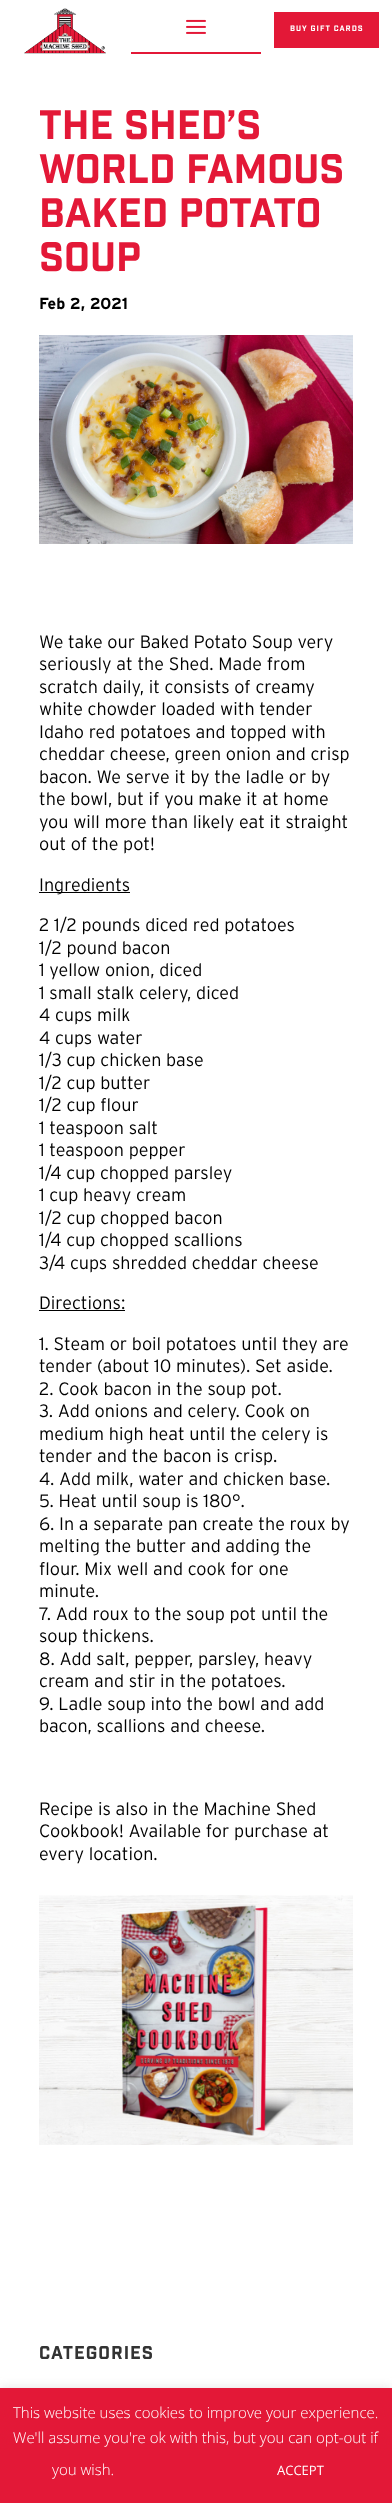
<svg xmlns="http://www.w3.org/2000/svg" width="392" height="2503">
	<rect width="100%" height="100%" fill="#FFFFFF" />
	<image x="24" y="8" width="82" height="46" href="assets/img1.png" />
	<rect x="131" y="52" width="130" height="2" fill="#E31837" />
	<image x="186" y="19" width="20" height="15" href="assets/img2.png" />
	<rect x="274" y="12" width="105" height="36" fill="#E31837" />
	<text x="290" y="31" font-family="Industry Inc" font-size="7.75" letter-spacing="1" fill="#FFFFFF">BUY GIFT CARDS</text>
	<g font-family="Industry Inc" font-size="40" fill="#E31837">
		<text x="39" y="139">THE SHED’S</text>
		<text x="39" y="183">WORLD FAMOUS</text>
		<text x="39" y="227">BAKED POTATO</text>
		<text x="39" y="271">SOUP</text>
	</g>
	<text x="39" y="309" font-family="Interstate" font-size="16" font-weight="700" fill="#000000">Feb 2, 2021</text>
	<image x="39" y="335" width="314" height="209" href="assets/img3.png" />
	<g font-family="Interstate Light" font-size="18" font-weight="300" fill="#000000">
		<text x="39" y="648">We take our Baked Potato Soup very</text>
		<text x="39" y="670">seriously at the Shed. Made from</text>
		<text x="39" y="693">scratch daily, it consists of creamy</text>
		<text x="39" y="715">white chowder loaded with tender</text>
		<text x="39" y="738">Idaho red potatoes and topped with</text>
		<text x="39" y="760">cheddar cheese, green onion and crisp</text>
		<text x="39" y="783">bacon. We serve it by the ladle or by</text>
		<text x="39" y="805">the bowl, but if you make it at home</text>
		<text x="39" y="828">you will more than likely eat it straight</text>
		<text x="39" y="850">out of the pot!</text>
	</g>
	<rect x="39" y="892" width="91" height="1" fill="#000000" />
	<g font-family="Interstate Light" font-size="18" font-weight="300" fill="#000000">
		<text x="39" y="891">Ingredients</text>
		<text x="39" y="931">2 1/2 pounds diced red potatoes</text>
		<text x="39" y="954">1/2 pound bacon</text>
		<text x="39" y="976">1 yellow onion, diced</text>
		<text x="39" y="999">1 small stalk celery, diced</text>
		<text x="39" y="1021">4 cups milk</text>
		<text x="39" y="1044">4 cups water</text>
		<text x="39" y="1066">1/3 cup chicken base</text>
		<text x="39" y="1089">1/2 cup butter</text>
		<text x="39" y="1111">1/2 cup flour</text>
		<text x="39" y="1134">1 teaspoon salt</text>
		<text x="39" y="1156">1 teaspoon pepper</text>
		<text x="39" y="1179">1/4 cup chopped parsley</text>
		<text x="39" y="1201">1 cup heavy cream</text>
		<text x="39" y="1224">1/2 cup chopped bacon</text>
		<text x="39" y="1246">1/4 cup chopped scallions</text>
		<text x="39" y="1269">3/4 cups shredded cheddar cheese</text>
		<text x="39" y="1309">Directions:</text>
	</g>
	<rect x="39" y="1310" width="86" height="1" fill="#000000" />
	<g font-family="Interstate Light" font-size="18" font-weight="300" fill="#000000">
		<text x="39" y="1350">1. Steam or boil potatoes until they are</text>
		<text x="39" y="1372">tender (about 10 minutes). Set aside.</text>
		<text x="39" y="1395">2. Cook bacon in the soup pot.</text>
		<text x="39" y="1417">3. Add onions and celery. Cook on</text>
		<text x="39" y="1440">medium high heat until the celery is</text>
		<text x="39" y="1462">tender and the bacon is crisp.</text>
		<text x="39" y="1485">4. Add milk, water and chicken base.</text>
		<text x="39" y="1507">5. Heat until soup is 180°.</text>
		<text x="39" y="1530">6. In a separate pan create the roux by</text>
		<text x="39" y="1552">melting the butter and adding the</text>
		<text x="39" y="1575">flour. Mix well and cook for one</text>
		<text x="39" y="1597">minute.</text>
		<text x="39" y="1620">7. Add roux to the soup pot until the</text>
		<text x="39" y="1642">soup thickens.</text>
		<text x="39" y="1665">8. Add salt, pepper, parsley, heavy</text>
		<text x="39" y="1687">cream and stir in the potatoes.</text>
		<text x="39" y="1710">9. Ladle soup into the bowl and add</text>
		<text x="39" y="1732">bacon, scallions and cheese.</text>
		<text x="39" y="1815">Recipe is also in the Machine Shed</text>
		<text x="39" y="1837">Cookbook! Available for purchase at</text>
		<text x="39" y="1860">every location.</text>
	</g>
	<image x="39" y="1895" width="314" height="250" href="assets/img4.png" />
	<text x="39" y="2359" font-family="Industry Inc" font-size="18" letter-spacing="1" fill="#333333">CATEGORIES</text>
	<rect x="0" y="2387" width="392" height="115" fill="#ACABAB" fill-opacity="0.3" filter="blur(5px)" />
	<rect x="0" y="2388" width="392" height="115" fill="#E31837" />
	<g font-family="Open Sans" font-size="15" font-weight="300" fill="#FFFFFF">
		<text x="13" y="2418">This website uses cookies to improve your experience.</text>
		<text x="13" y="2443">We'll assume you're ok with this, but you can opt-out if</text>
		<text x="52" y="2475">you wish.</text>
	</g>
	<text x="277" y="2475" font-family="Open Sans" font-size="13" fill="#FFFFFF">ACCEPT</text>
</svg>
